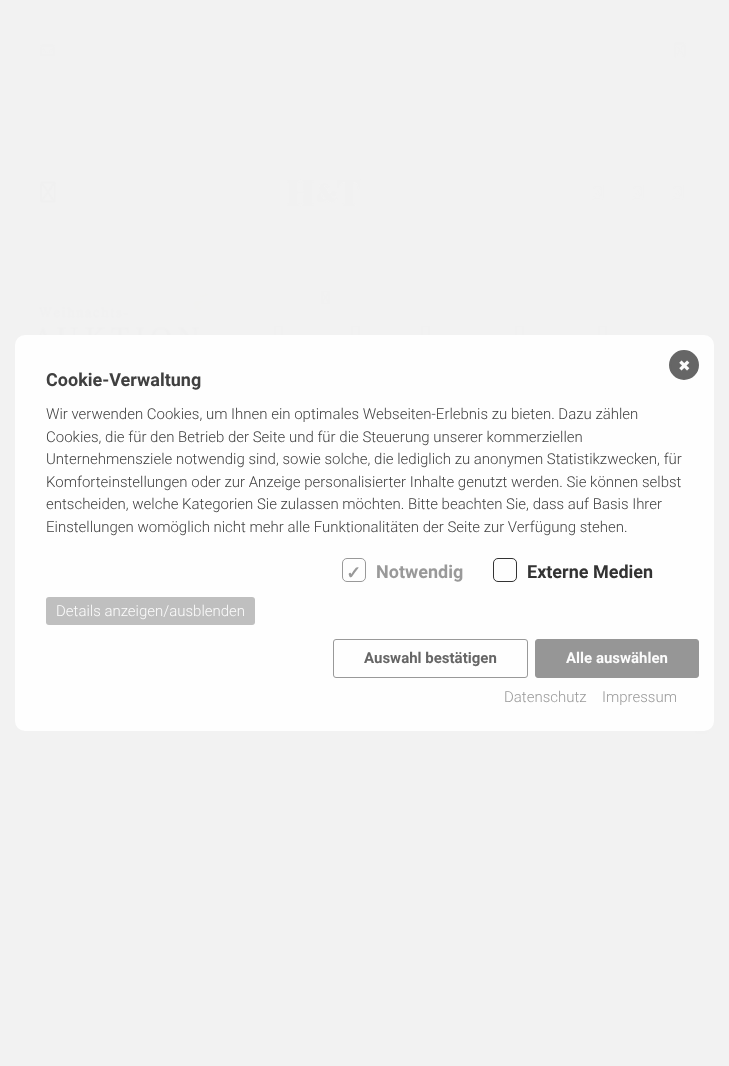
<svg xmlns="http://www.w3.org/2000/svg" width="729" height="1066">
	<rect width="100%" height="100%" fill="#F2F2F2" />
	<image x="40" y="44" width="15" height="12" href="assets/img1.png" />
	<image x="674" y="42" width="12" height="16" href="assets/img2.png" />
	<image x="40" y="181" width="16" height="22" href="assets/img3.png" />
	<image x="287" y="179" width="74" height="28" href="assets/img4.png" />
	<image x="592" y="184" width="12" height="16" href="assets/img5.png" />
	<image x="632" y="184" width="12" height="16" href="assets/img6.png" />
	<image x="672" y="184" width="12" height="16" href="assets/img5.png" />
	<image x="20" y="283" width="202" height="54" href="assets/img7.png" />
	<image x="321" y="291" width="9" height="13" href="assets/img8.png" />
	<image x="274" y="326" width="9" height="9" href="assets/img9.png" />
	<image x="351" y="326" width="9" height="9" href="assets/img9.png" />
	<image x="421" y="326" width="9" height="9" href="assets/img9.png" />
	<image x="515" y="326" width="9" height="9" href="assets/img9.png" />
	<image x="598" y="326" width="9" height="9" href="assets/img9.png" />
	<image x="695" y="729" width="14" height="5" href="assets/img10.png" />
	<rect x="15" y="335" width="699" height="396" rx="10" fill="#FEFEFE" />
	<circle cx="684" cy="365" r="14" fill="#666666" stroke="#666666" stroke-width="2" />
	<text x="678" y="371" font-family="DejaVu Sans" font-size="15" fill="#FCFCFC">✖</text>
	<text x="46" y="386" font-family="Roboto" font-size="18" font-weight="700" fill="#404040">Cookie-Verwaltung</text>
	<g font-family="Roboto" font-size="15" font-weight="300" fill="#404040">
		<text x="46" y="419">Wir verwenden Cookies, um Ihnen ein optimales Webseiten-Erlebnis zu bieten. Dazu zählen</text>
		<text x="46" y="442">Cookies, die für den Betrieb der Seite und für die Steuerung unserer kommerziellen</text>
		<text x="46" y="464">Unternehmensziele notwendig sind, sowie solche, die lediglich zu anonymen Statistikzwecken, für</text>
		<text x="46" y="487">Komforteinstellungen oder zur Anzeige personalisierter Inhalte genutzt werden. Sie können selbst</text>
		<text x="46" y="509">entscheiden, welche Kategorien Sie zulassen möchten. Bitte beachten Sie, dass auf Basis Ihrer</text>
		<text x="46" y="532">Einstellungen womöglich nicht mehr alle Funktionalitäten der Seite zur Verfügung stehen.</text>
	</g>
	<rect x="342.5" y="558.5" width="23" height="23" rx="4.5" fill="none" stroke="#999999" />
	<text x="346" y="579" font-family="DejaVu Sans" font-size="18" font-weight="700" fill="#999999">✓</text>
	<text x="376" y="578" font-family="Roboto" font-size="18" font-weight="700" fill="#999999">Notwendig</text>
	<rect x="493.5" y="558.5" width="23" height="23" rx="4.5" fill="none" stroke="#333333" />
	<text x="527" y="578" font-family="Roboto" font-size="18" font-weight="700" fill="#333333">Externe Medien</text>
	<rect x="46" y="597" width="209" height="28" rx="3" fill="#BFBFBF" />
	<text x="56" y="616" font-family="Roboto" font-size="15" font-weight="300" fill="#FCFCFC">Details anzeigen/ausblenden</text>
	<rect x="333.5" y="639.5" width="194" height="38" rx="2.5" fill="none" stroke="#999999" />
	<text x="364" y="663" font-family="Roboto" font-size="15" font-weight="700" fill="#666666">Auswahl bestätigen</text>
	<rect x="535.5" y="639.5" width="163" height="38" rx="2.5" fill="#969696" stroke="#969696" />
	<text x="566" y="663" font-family="Roboto" font-size="15" font-weight="700" fill="#FCFCFC">Alle auswählen</text>
	<g font-family="Roboto" font-size="15" font-weight="300" fill="#999999">
		<text x="504" y="702">Datenschutz</text>
		<text x="602" y="702">Impressum</text>
	</g>
</svg>
